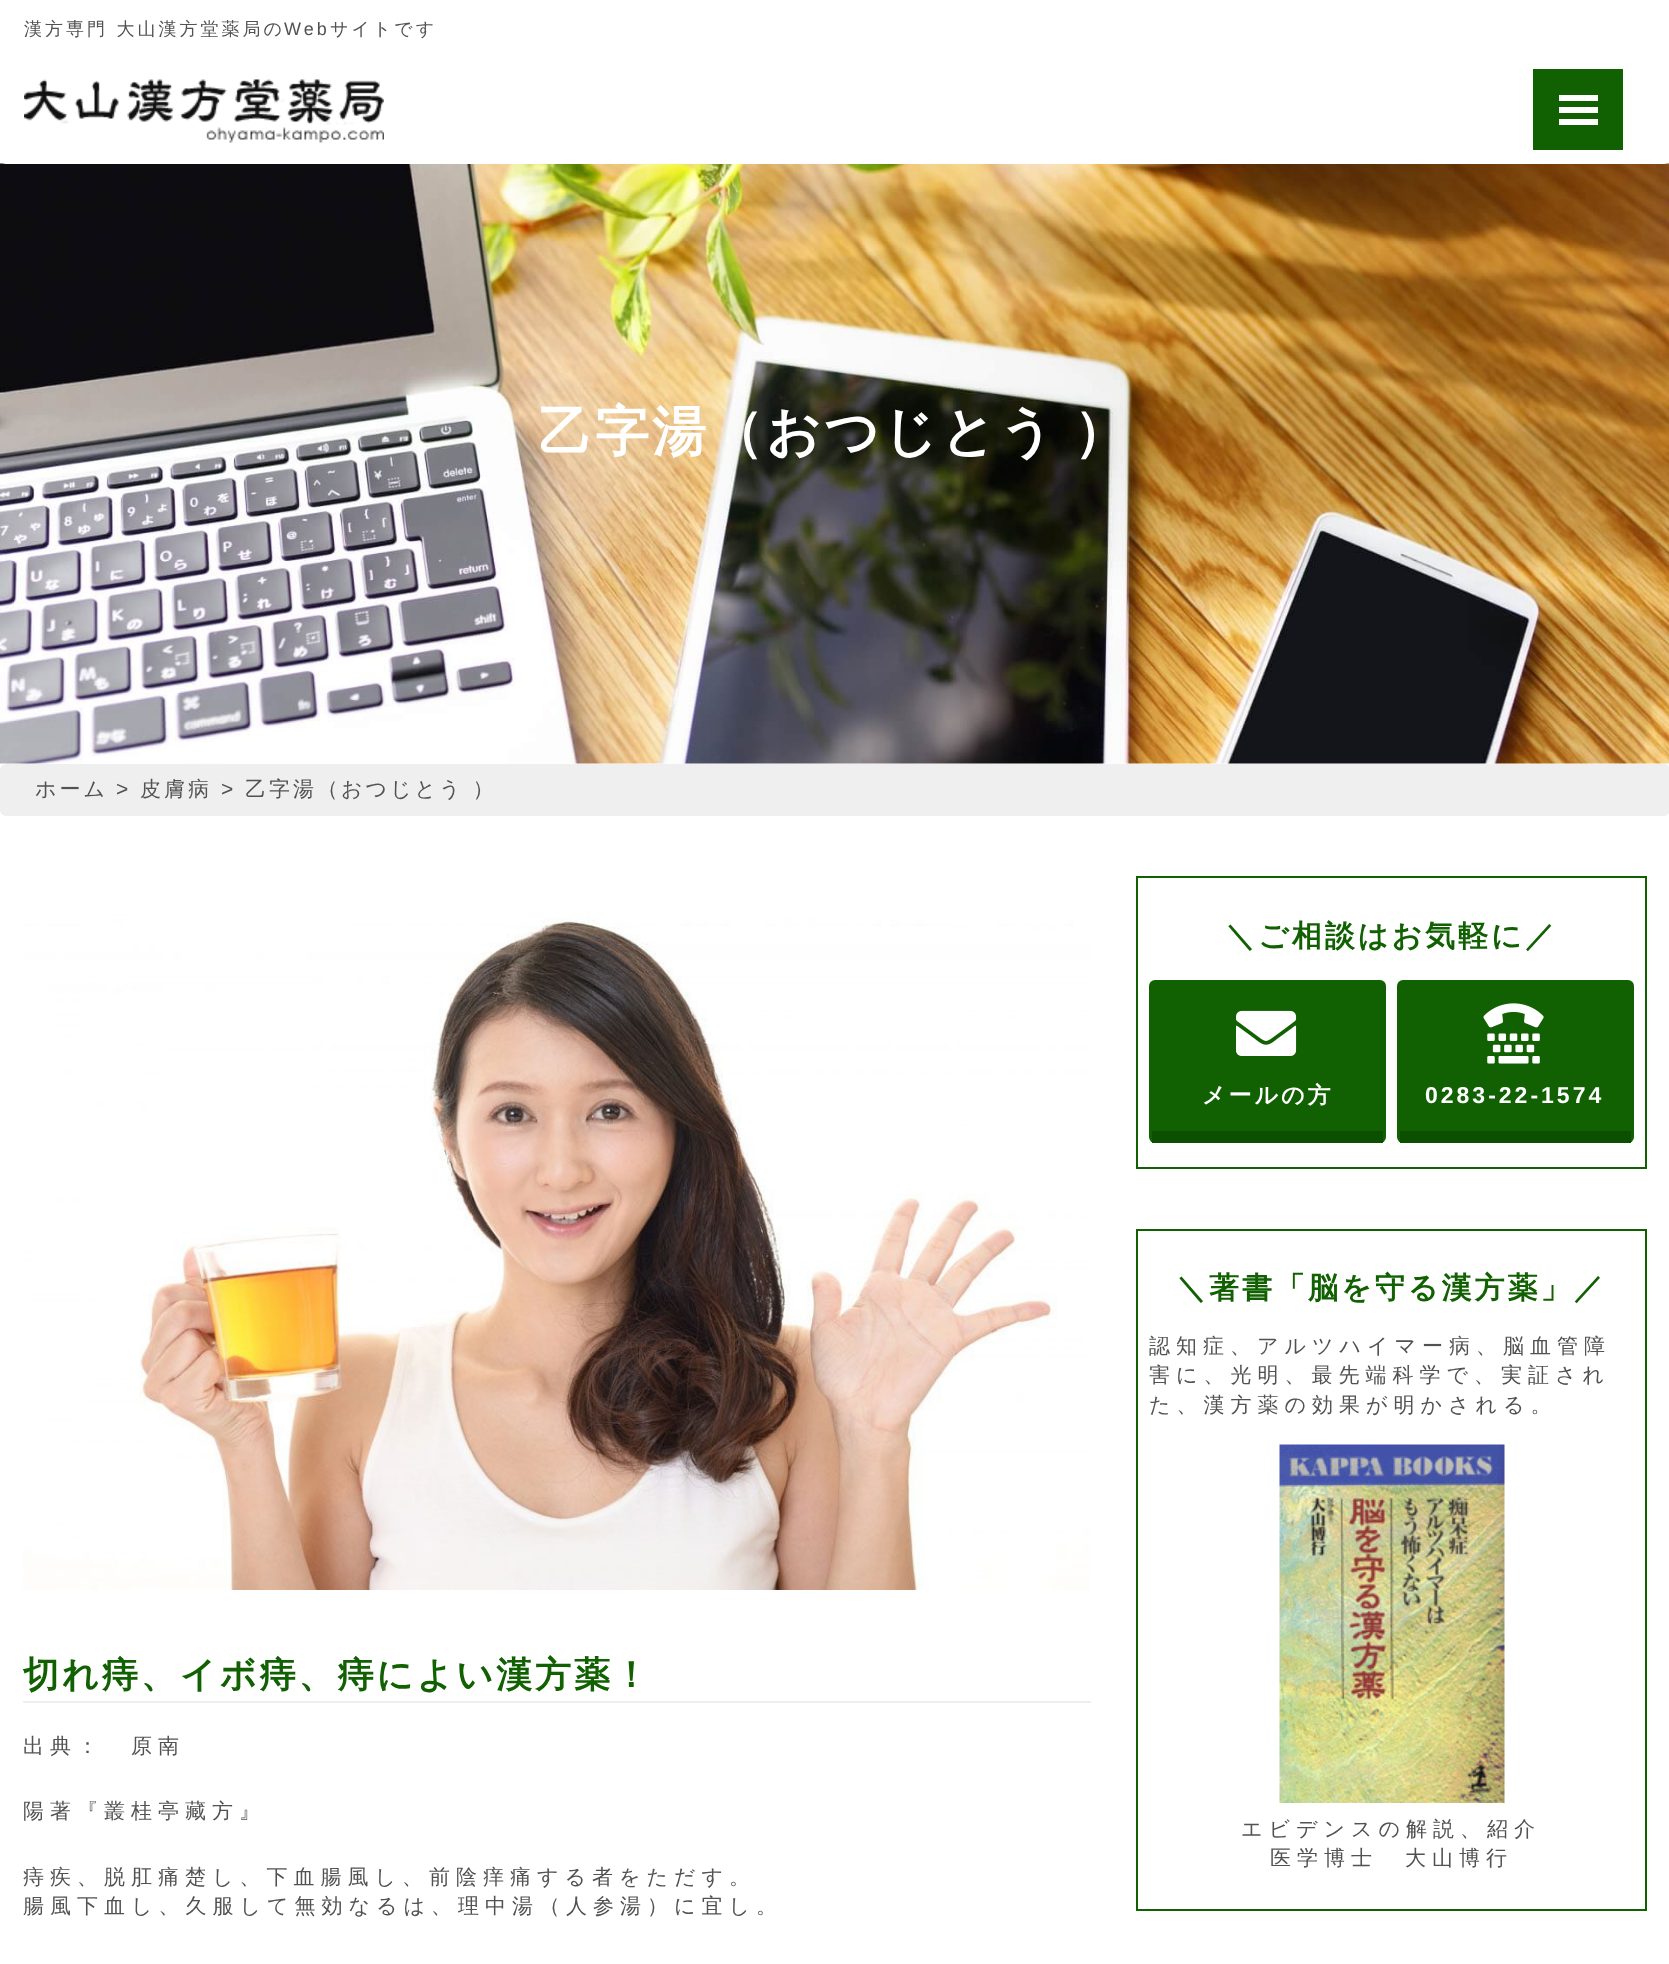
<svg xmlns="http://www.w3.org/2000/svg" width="1669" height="1964">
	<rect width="100%" height="100%" fill="#FFFFFF" />
	<image x="0" y="163" width="1669" height="601" href="assets/img2.png" />
	<rect x="1" y="1" width="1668" height="162" rx="5" fill="#FFFFFF" stroke="#FFFFFF" stroke-width="2" />
	<text x="24" y="35" font-family="WenQuanYi Zen Hei" font-size="18" font-weight="500" letter-spacing="3" fill="#525252">漢方専門 大山漢方堂薬局の</text>
	<text x="284" y="35" font-family="Liberation Sans" font-size="18" letter-spacing="3" fill="#525252">Web</text>
	<text x="330" y="35" font-family="WenQuanYi Zen Hei" font-size="18" font-weight="500" letter-spacing="3" fill="#525252">サイトです</text>
	<image x="24" y="79" width="360" height="64" href="assets/img1.png" />
	<rect x="1533" y="69" width="90" height="81" fill="#116102" />
	<rect x="1559" y="95" width="39" height="6" fill="#FFFFFF" />
	<rect x="1559" y="107" width="39" height="6" fill="#FFFFFF" />
	<rect x="1559" y="119" width="39" height="6" fill="#FFFFFF" />
	<text x="538" y="450" word-spacing="-3" font-family="WenQuanYi Zen Hei" font-size="54" font-weight="700" letter-spacing="3" fill="#FFFFFF">乙字湯（おつじとう ）</text>
	<rect x="0" y="764" width="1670" height="52" rx="6" fill="#EFEFEF" />
	<text x="35" y="796" font-family="WenQuanYi Zen Hei" font-size="21" font-weight="500" letter-spacing="3" fill="#525252">ホーム</text>
	<text x="116" y="796" font-family="Liberation Sans" font-size="21" letter-spacing="3" fill="#525252">&gt;</text>
	<text x="140" y="796" font-family="WenQuanYi Zen Hei" font-size="21" font-weight="500" letter-spacing="3" fill="#525252">皮膚病</text>
	<text x="221" y="796" font-family="Liberation Sans" font-size="21" letter-spacing="3" fill="#525252">&gt;</text>
	<text x="245" y="796" font-family="WenQuanYi Zen Hei" font-size="21" font-weight="500" letter-spacing="3" fill="#525252">乙字湯（おつじとう ）</text>
	<image x="23" y="914" width="1067" height="676" href="assets/img3.png" />
	<rect x="23" y="1701" width="1068" height="2" fill="#EEEEEE" />
	<text x="23" y="1687" font-family="WenQuanYi Zen Hei" font-size="36" font-weight="700" letter-spacing="3" fill="#116102">切れ痔、イボ痔、痔によい漢方薬！</text>
	<g font-family="WenQuanYi Zen Hei" font-size="21" font-weight="500" letter-spacing="6" fill="#525252">
		<text x="23" y="1753">出典：　原南</text>
		<text x="23" y="1818">陽著『叢桂亭藏方』</text>
		<text x="23" y="1884">痔疾、脱肛痛楚し、下血腸風し、前陰痒痛する者をただす。</text>
		<text x="23" y="1913">腸風下血し、久服して無効なるは、理中湯（人参湯）に宜し。</text>
	</g>
	<rect x="1137" y="877" width="509" height="291" fill="none" stroke="#116102" stroke-width="2" />
	<text x="1225" y="946" font-family="WenQuanYi Zen Hei" font-size="30" font-weight="700" letter-spacing="3" fill="#116102">＼ご相談はお気軽に／</text>
	<rect x="1149" y="980" width="237" height="163" rx="6" fill="#116102" />
	<rect x="1152" y="1131" width="231" height="12" fill="#0D4F01" />
	<image x="1236" y="1010" width="61" height="46" href="assets/img4.png" />
	<text x="1202" y="1103" font-family="WenQuanYi Zen Hei" font-size="23" font-weight="700" letter-spacing="3" fill="#FFFFFF">メールの方</text>
	<rect x="1397" y="980" width="237" height="163" rx="6" fill="#116102" />
	<rect x="1400" y="1131" width="231" height="12" fill="#0D4F01" />
	<image x="1483" y="1003" width="61" height="61" href="assets/img5.png" />
	<text x="1425" y="1103" font-family="Liberation Sans" font-size="23" font-weight="700" letter-spacing="3" fill="#FFFFFF">0283-22-1574</text>
	<rect x="1137" y="1230" width="509" height="680" fill="none" stroke="#116102" stroke-width="2" />
	<text x="1176" y="1298" font-family="WenQuanYi Zen Hei" font-size="30" font-weight="700" letter-spacing="3" fill="#116102">＼著書「脳を守る漢方薬」／</text>
	<g font-family="WenQuanYi Zen Hei" font-size="21" font-weight="500" letter-spacing="6" fill="#525252">
		<text x="1149" y="1353">認知症、アルツハイマー病、脳血管障</text>
		<text x="1149" y="1382">害に、光明、最先端科学で、実証され</text>
		<text x="1149" y="1412">た、漢方薬の効果が明かされる。</text>
	</g>
	<image x="1279" y="1444" width="226" height="359" href="assets/img6.png" />
	<g font-family="WenQuanYi Zen Hei" font-size="21" font-weight="500" letter-spacing="6" fill="#525252">
		<text x="1241" y="1836">エビデンスの解説、紹介</text>
		<text x="1270" y="1865">医学博士　大山博行</text>
	</g>
</svg>
